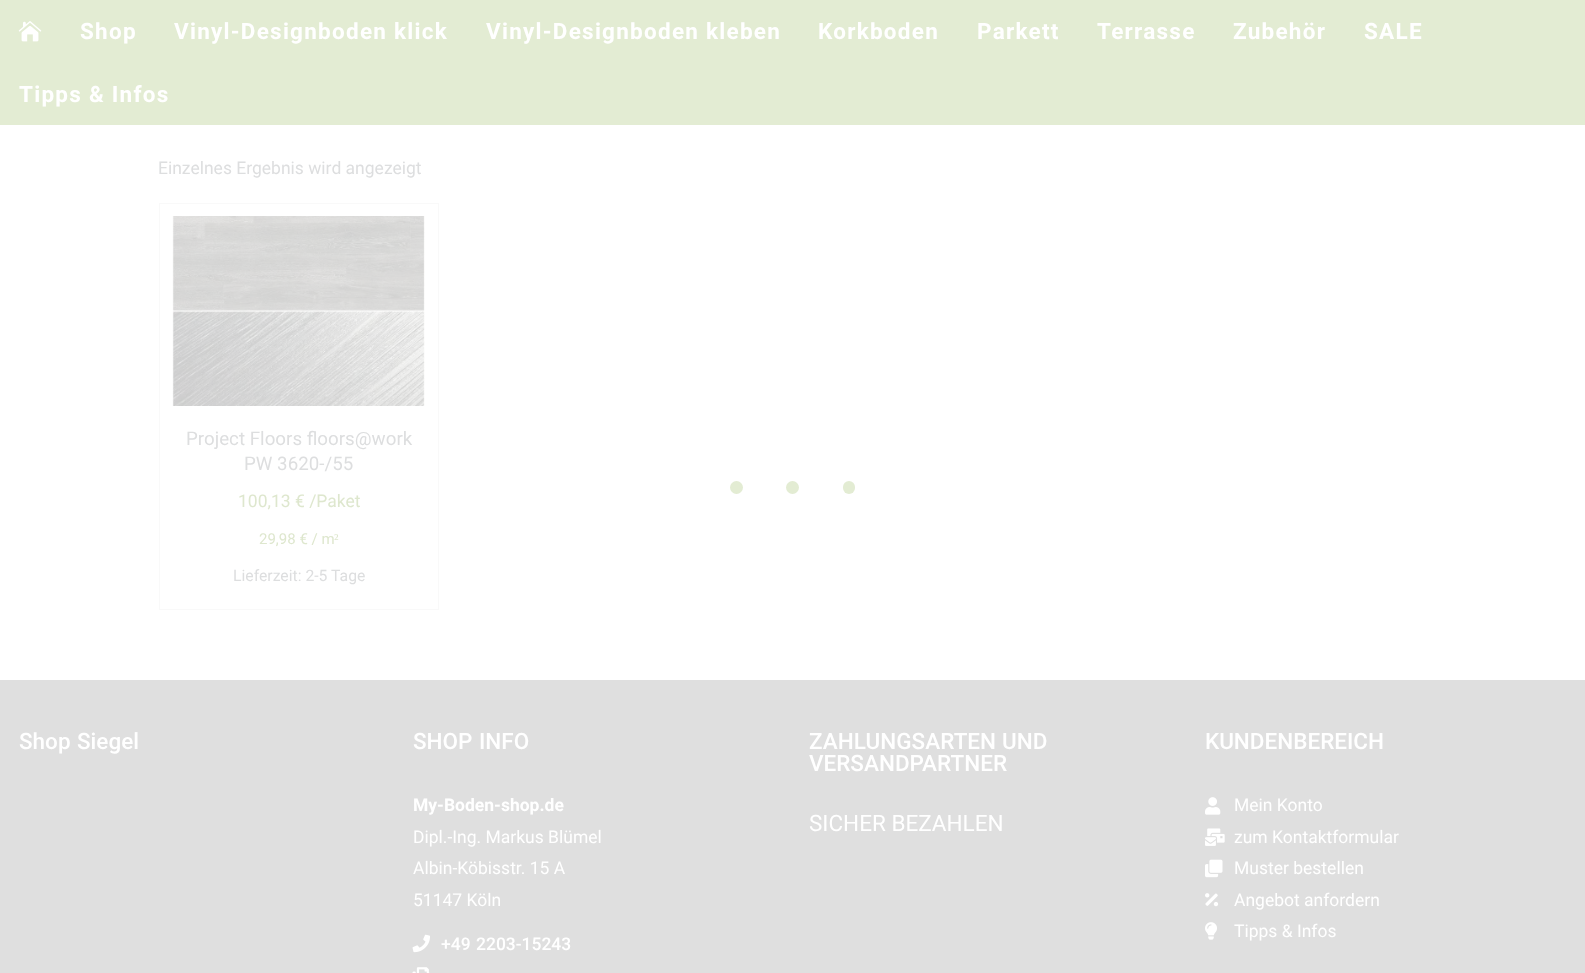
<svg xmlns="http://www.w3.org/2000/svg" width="1585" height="973">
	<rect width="100%" height="100%" fill="#FFFFFF" />
	<rect x="0" y="0" width="1585" height="125" fill="#E3ECD3" />
	<image x="18" y="21" width="24" height="21" href="assets/img1.png" />
	<g font-family="Roboto" font-size="22.5" font-weight="700" letter-spacing="1.25" fill="#FFFFFF">
		<text x="80" y="39">Shop</text>
		<text x="174" y="39">Vinyl-Designboden klick</text>
		<text x="486" y="39">Vinyl-Designboden kleben</text>
		<text x="818" y="39">Korkboden</text>
		<text x="977" y="39">Parkett</text>
		<text x="1097" y="39">Terrasse</text>
		<text x="1233" y="39">Zubehör</text>
		<text x="1364" y="39">SALE</text>
		<text x="19" y="102">Tipps &amp; Infos</text>
	</g>
	<text x="158" y="174" font-family="Roboto" font-size="17.5" fill="#DDDEDF">Einzelnes Ergebnis wird angezeigt</text>
	<rect x="159.5" y="203.5" width="279" height="406" fill="none" stroke="#F9F9F9" />
	<image x="172" y="216" width="253" height="190" href="assets/img2.png" />
	<g font-family="Roboto" font-size="18.75" fill="#DDDEDF">
		<text x="186" y="445">Project Floors floors@work</text>
		<text x="244" y="470">PW 3620-/55</text>
	</g>
	<text x="238" y="507" font-family="Roboto" font-size="17.5" fill="#DEE7CE">100,13 € /Paket</text>
	<text x="259" y="544" font-family="Roboto" font-size="15" fill="#DEE7CE">29,98 € / m</text>
	<text x="334" y="544" font-family="Liberation Serif" font-size="15" fill="#DEE7CE">²</text>
	<text x="233" y="581" font-family="Roboto" font-size="15.75" fill="#DDDEDF">Lieferzeit: 2-5 Tage</text>
	<circle cx="736.5" cy="487.5" r="6.5" fill="#E3ECD3" />
	<circle cx="792.5" cy="487.5" r="6.5" fill="#E3ECD3" />
	<rect x="843" y="481" width="12" height="13" rx="6" fill="#E3ECD3" />
	<rect x="0" y="680" width="1585" height="293" fill="#DFDFDF" />
	<g font-family="Roboto" font-size="22.5" font-weight="500" fill="#FFFFFF">
		<text x="19" y="749">Shop</text>
		<text x="77" y="749">Siegel</text>
		<text x="413" y="749">SHOP</text>
		<text x="479" y="749">INFO</text>
	</g>
	<text x="413" y="811" font-family="Roboto" font-size="17.5" font-weight="700" fill="#FFFFFF">My-Boden-shop.de</text>
	<g font-family="Roboto" font-size="17.5" fill="#FFFFFF">
		<text x="413" y="843">Dipl.-Ing. Markus Blümel</text>
		<text x="413" y="874">Albin-Köbisstr. 15 A</text>
		<text x="413" y="906">51147 Köln</text>
	</g>
	<image x="412" y="934" width="18" height="19" href="assets/img3.png" />
	<g font-family="Roboto" font-size="17.5" font-weight="500" fill="#FFFFFF">
		<text x="441" y="950">+49</text>
		<text x="476" y="950">2203-15243</text>
	</g>
	<image x="412" y="967" width="18" height="6" href="assets/img4.png" />
	<g font-family="Roboto" font-size="22.5" font-weight="500" fill="#FFFFFF">
		<text x="809" y="749">ZAHLUNGSARTEN</text>
		<text x="1002" y="749">UND</text>
		<text x="809" y="771">VERSANDPARTNER</text>
	</g>
	<text x="809" y="831" font-family="Roboto" font-size="22.5" fill="#FFFFFF">SICHER BEZAHLEN</text>
	<text x="1205" y="749" font-family="Roboto" font-size="22.5" font-weight="500" fill="#FFFFFF">KUNDENBEREICH</text>
	<image x="1205" y="797" width="16" height="18" href="assets/img5.png" />
	<text x="1234" y="811" font-family="Roboto" font-size="17.5" fill="#FFFFFF">Mein Konto</text>
	<image x="1205" y="828" width="20" height="18" href="assets/img6.png" />
	<text x="1234" y="843" font-family="Roboto" font-size="17.5" fill="#FFFFFF">zum Kontaktformular</text>
	<image x="1205" y="859" width="18" height="19" href="assets/img7.png" />
	<text x="1234" y="874" font-family="Roboto" font-size="17.5" fill="#FFFFFF">Muster bestellen</text>
	<image x="1205" y="893" width="14" height="14" href="assets/img8.png" />
	<text x="1234" y="906" font-family="Roboto" font-size="17.5" fill="#FFFFFF">Angebot anfordern</text>
	<image x="1205" y="922" width="12" height="18" href="assets/img9.png" />
	<text x="1234" y="937" font-family="Roboto" font-size="17.5" fill="#FFFFFF">Tipps &amp; Infos</text>
</svg>
